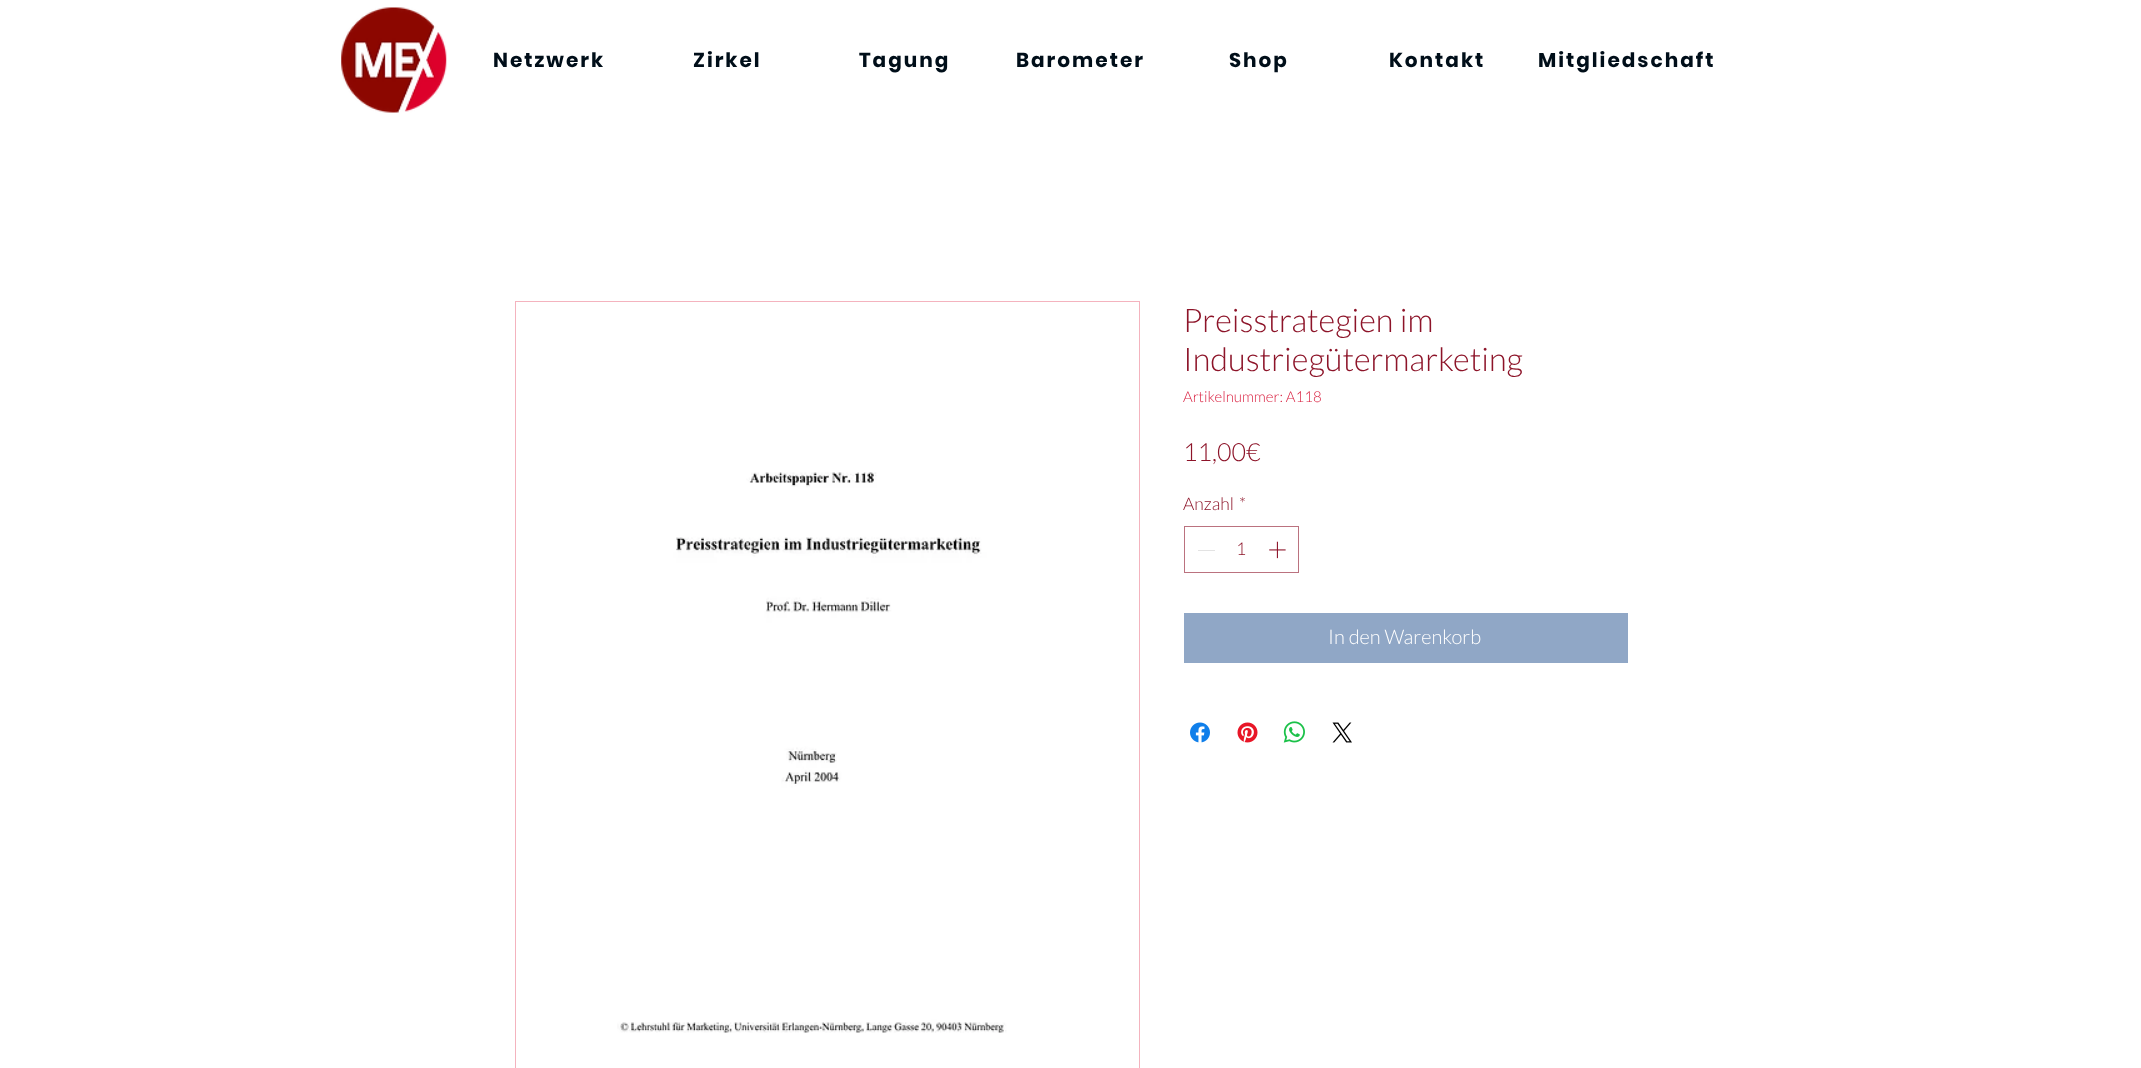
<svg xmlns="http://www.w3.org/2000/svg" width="2141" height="1068">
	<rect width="100%" height="100%" fill="#FFFFFF" />
	<image x="341" y="7" width="106" height="106" href="assets/img1.png" />
	<g font-family="Poppins" font-size="20" font-weight="700" letter-spacing="2" fill="#000E19">
		<text x="493" y="67">Netzwerk</text>
		<text x="693" y="67">Zirkel</text>
		<text x="859" y="67">Tagung</text>
		<text x="1016" y="67">Barometer</text>
		<text x="1229" y="67">Shop</text>
		<text x="1389" y="67">Kontakt</text>
		<text x="1538" y="67">Mitgliedschaft</text>
	</g>
	<rect x="515.5" y="301.5" width="624" height="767" fill="none" stroke="#F4B3BE" />
	<image x="617" y="472" width="390" height="561" href="assets/img2.png" />
	<g font-family="Lato" font-size="32.5" font-weight="300" fill="#8D1429">
		<text x="1183" y="332">Preisstrategien im</text>
		<text x="1183" y="371">Industriegütermarketing</text>
	</g>
	<text x="1183" y="402" font-family="Lato" font-size="15" font-weight="300" fill="#D91F3F">Artikelnummer: A118</text>
	<text x="1183" y="461" font-family="Lato" font-size="25" font-weight="300" fill="#8D1429">11,00€</text>
	<g font-family="Lato" font-size="17.5" font-weight="300" fill="#8D1429">
		<text x="1183" y="510">Anzahl</text>
		<text x="1239" y="510">*</text>
	</g>
	<rect x="1184.5" y="526.5" width="114" height="46" fill="none" stroke="#BB727F" />
	<rect x="1198" y="550" width="17" height="1" fill="#E3E3E3" />
	<text x="1236" y="555" font-family="Lato" font-size="17.5" font-weight="300" fill="#8D1429">1</text>
	<image x="1269" y="541" width="17" height="18" href="assets/img3.png" />
	<rect x="1184" y="613" width="444" height="50" fill="#90A7C6" />
	<text x="1328" y="644" font-family="Lato" font-size="20" font-weight="300" fill="#FFFFFF">In den Warenkorb</text>
	<image x="1190" y="722" width="20" height="21" href="assets/img4.png" />
	<image x="1237" y="722" width="21" height="21" href="assets/img5.png" />
	<image x="1283" y="721" width="22" height="22" href="assets/img6.png" />
	<image x="1332" y="722" width="20" height="21" href="assets/img7.png" />
</svg>
